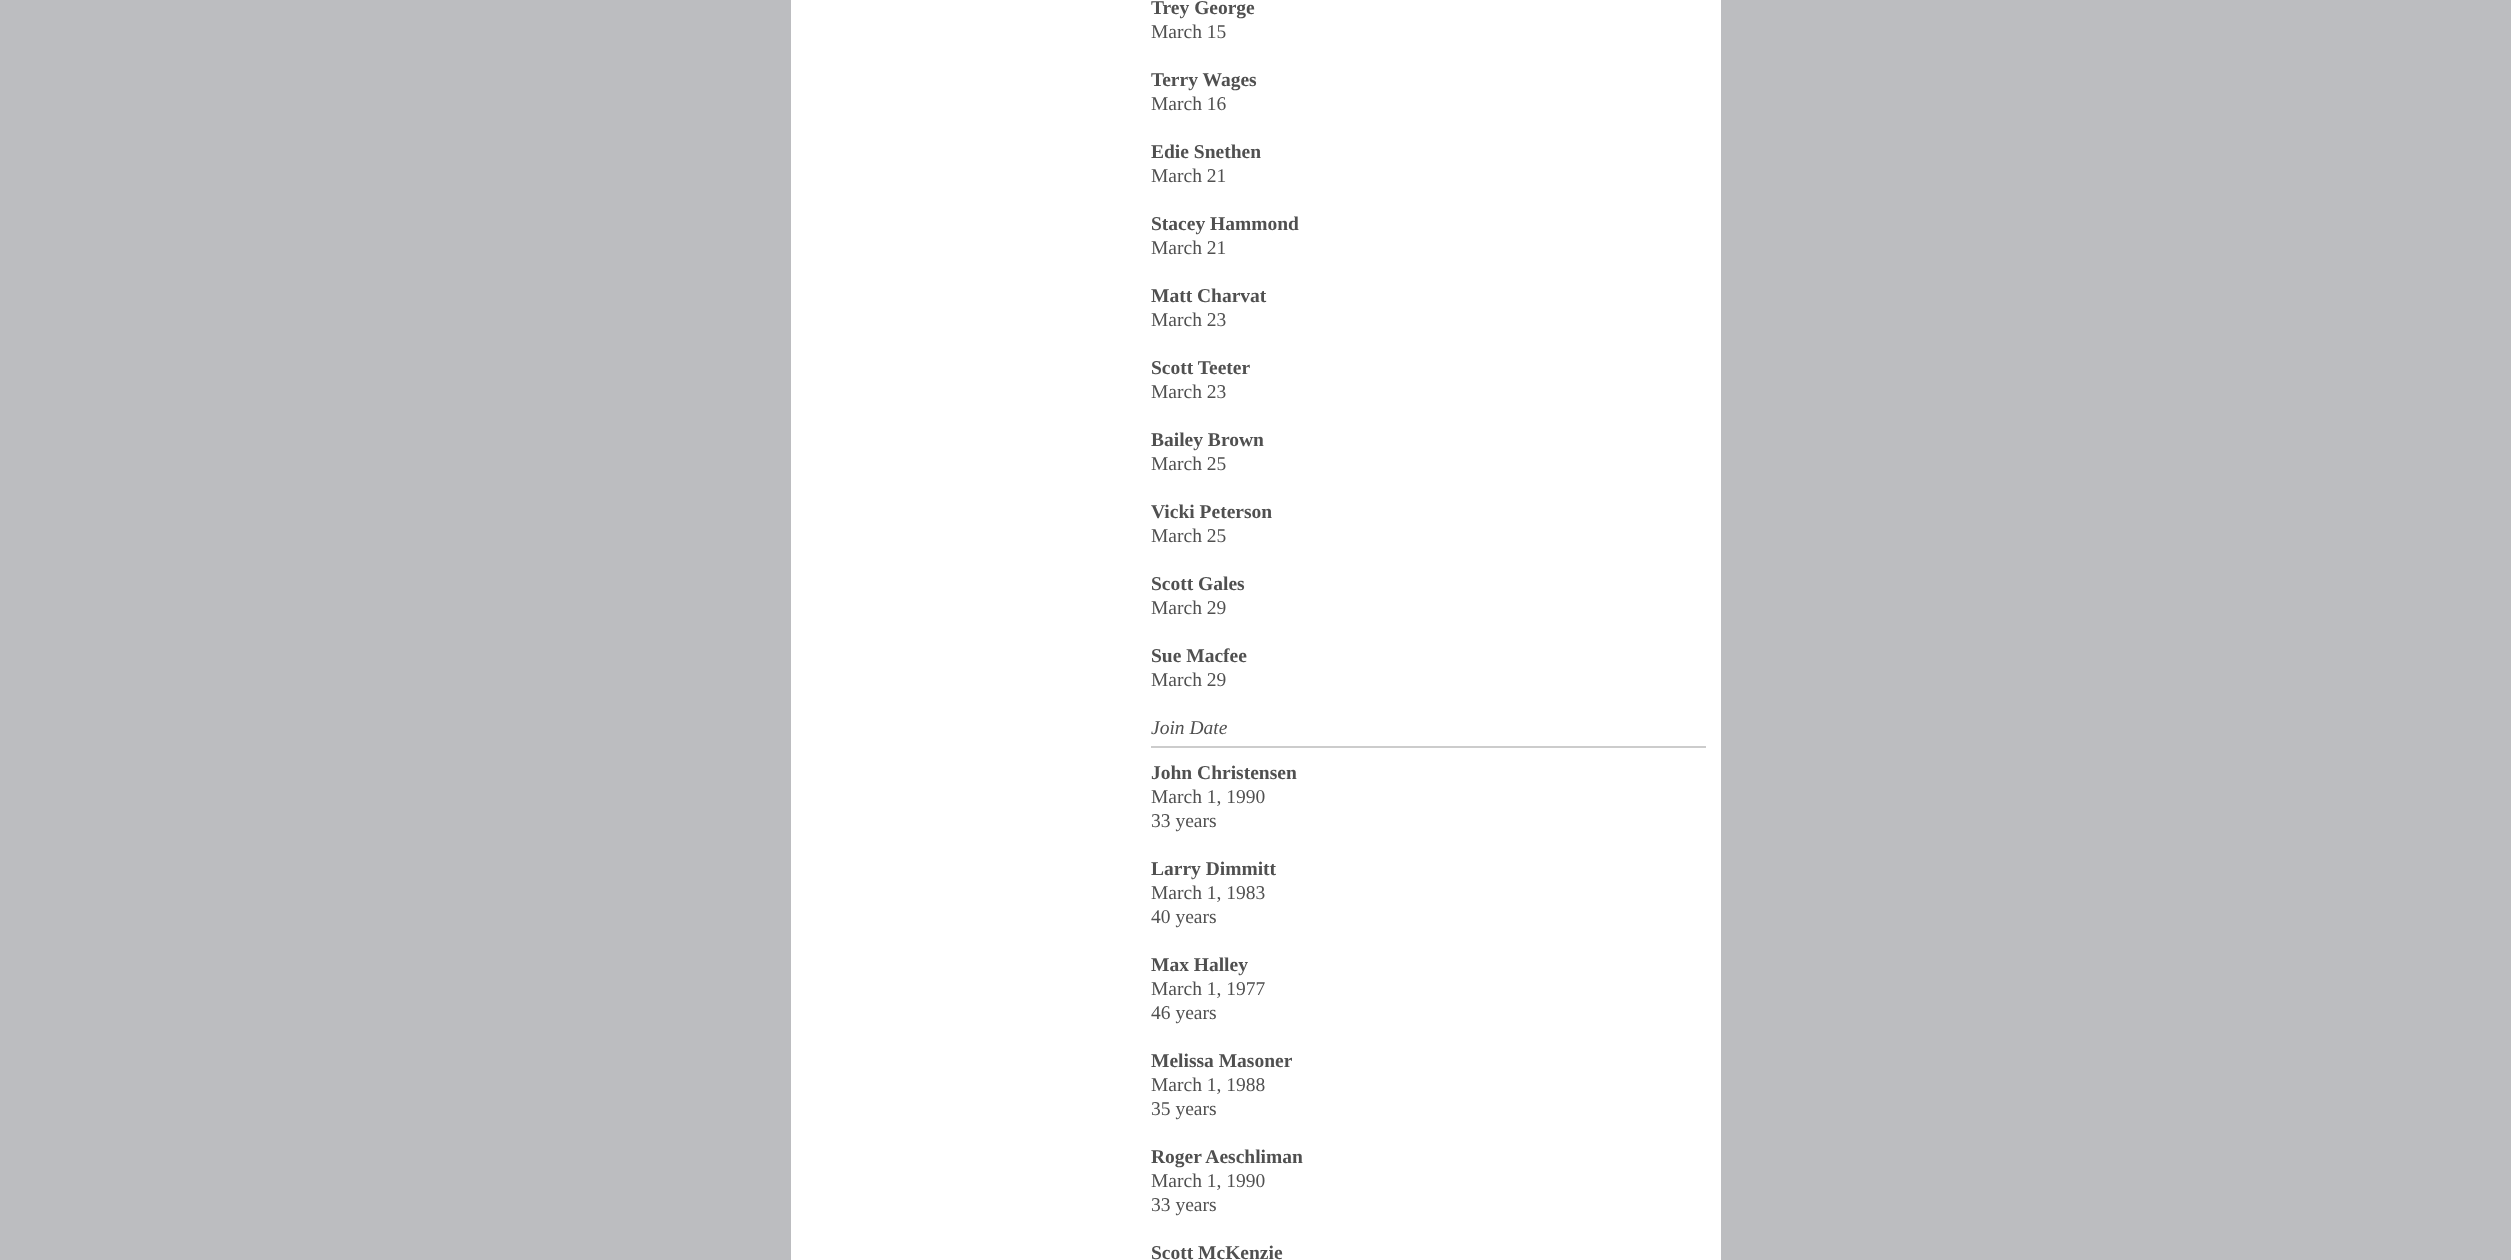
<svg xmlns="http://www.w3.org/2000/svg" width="2511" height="1260">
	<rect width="100%" height="100%" fill="#BCBDC0" />
	<rect x="791" y="0" width="930" height="1260" fill="#FFFFFF" />
	<text x="1151" y="14" font-family="Liberation Serif" font-size="19.5" font-weight="700" fill="#505050">Trey George</text>
	<text x="1151" y="38" font-family="Liberation Serif" font-size="19.5" fill="#505050">March 15</text>
	<text x="1151" y="86" font-family="Liberation Serif" font-size="19.5" font-weight="700" fill="#505050">Terry Wages</text>
	<text x="1151" y="110" font-family="Liberation Serif" font-size="19.5" fill="#505050">March 16</text>
	<text x="1151" y="158" font-family="Liberation Serif" font-size="19.5" font-weight="700" fill="#505050">Edie Snethen</text>
	<text x="1151" y="182" font-family="Liberation Serif" font-size="19.5" fill="#505050">March 21</text>
	<text x="1151" y="230" font-family="Liberation Serif" font-size="19.5" font-weight="700" fill="#505050">Stacey Hammond</text>
	<text x="1151" y="254" font-family="Liberation Serif" font-size="19.5" fill="#505050">March 21</text>
	<text x="1151" y="302" font-family="Liberation Serif" font-size="19.5" font-weight="700" fill="#505050">Matt Charvat</text>
	<text x="1151" y="326" font-family="Liberation Serif" font-size="19.5" fill="#505050">March 23</text>
	<text x="1151" y="374" font-family="Liberation Serif" font-size="19.5" font-weight="700" fill="#505050">Scott Teeter</text>
	<text x="1151" y="398" font-family="Liberation Serif" font-size="19.5" fill="#505050">March 23</text>
	<text x="1151" y="446" font-family="Liberation Serif" font-size="19.5" font-weight="700" fill="#505050">Bailey Brown</text>
	<text x="1151" y="470" font-family="Liberation Serif" font-size="19.5" fill="#505050">March 25</text>
	<text x="1151" y="518" font-family="Liberation Serif" font-size="19.5" font-weight="700" fill="#505050">Vicki Peterson</text>
	<text x="1151" y="542" font-family="Liberation Serif" font-size="19.5" fill="#505050">March 25</text>
	<text x="1151" y="590" font-family="Liberation Serif" font-size="19.5" font-weight="700" fill="#505050">Scott Gales</text>
	<text x="1151" y="614" font-family="Liberation Serif" font-size="19.5" fill="#505050">March 29</text>
	<text x="1151" y="662" font-family="Liberation Serif" font-size="19.5" font-weight="700" fill="#505050">Sue Macfee</text>
	<text x="1151" y="686" font-family="Liberation Serif" font-size="19.5" fill="#505050">March 29</text>
	<rect x="1151" y="746" width="555" height="2" fill="#CCCCCC" />
	<text x="1151" y="734" font-family="Liberation Serif" font-size="19.5" font-style="italic" fill="#505050">Join Date</text>
	<text x="1151" y="779" font-family="Liberation Serif" font-size="19.5" font-weight="700" fill="#505050">John Christensen</text>
	<g font-family="Liberation Serif" font-size="19.5" fill="#505050">
		<text x="1151" y="803">March 1, 1990</text>
		<text x="1151" y="827">33 years</text>
	</g>
	<text x="1151" y="875" font-family="Liberation Serif" font-size="19.5" font-weight="700" fill="#505050">Larry Dimmitt</text>
	<g font-family="Liberation Serif" font-size="19.5" fill="#505050">
		<text x="1151" y="899">March 1, 1983</text>
		<text x="1151" y="923">40 years</text>
	</g>
	<text x="1151" y="971" font-family="Liberation Serif" font-size="19.5" font-weight="700" fill="#505050">Max Halley</text>
	<g font-family="Liberation Serif" font-size="19.5" fill="#505050">
		<text x="1151" y="995">March 1, 1977</text>
		<text x="1151" y="1019">46 years</text>
	</g>
	<text x="1151" y="1067" font-family="Liberation Serif" font-size="19.5" font-weight="700" fill="#505050">Melissa Masoner</text>
	<g font-family="Liberation Serif" font-size="19.5" fill="#505050">
		<text x="1151" y="1091">March 1, 1988</text>
		<text x="1151" y="1115">35 years</text>
	</g>
	<text x="1151" y="1163" font-family="Liberation Serif" font-size="19.5" font-weight="700" fill="#505050">Roger Aeschliman</text>
	<g font-family="Liberation Serif" font-size="19.5" fill="#505050">
		<text x="1151" y="1187">March 1, 1990</text>
		<text x="1151" y="1211">33 years</text>
	</g>
	<text x="1151" y="1259" font-family="Liberation Serif" font-size="19.5" font-weight="700" fill="#505050">Scott McKenzie</text>
</svg>
